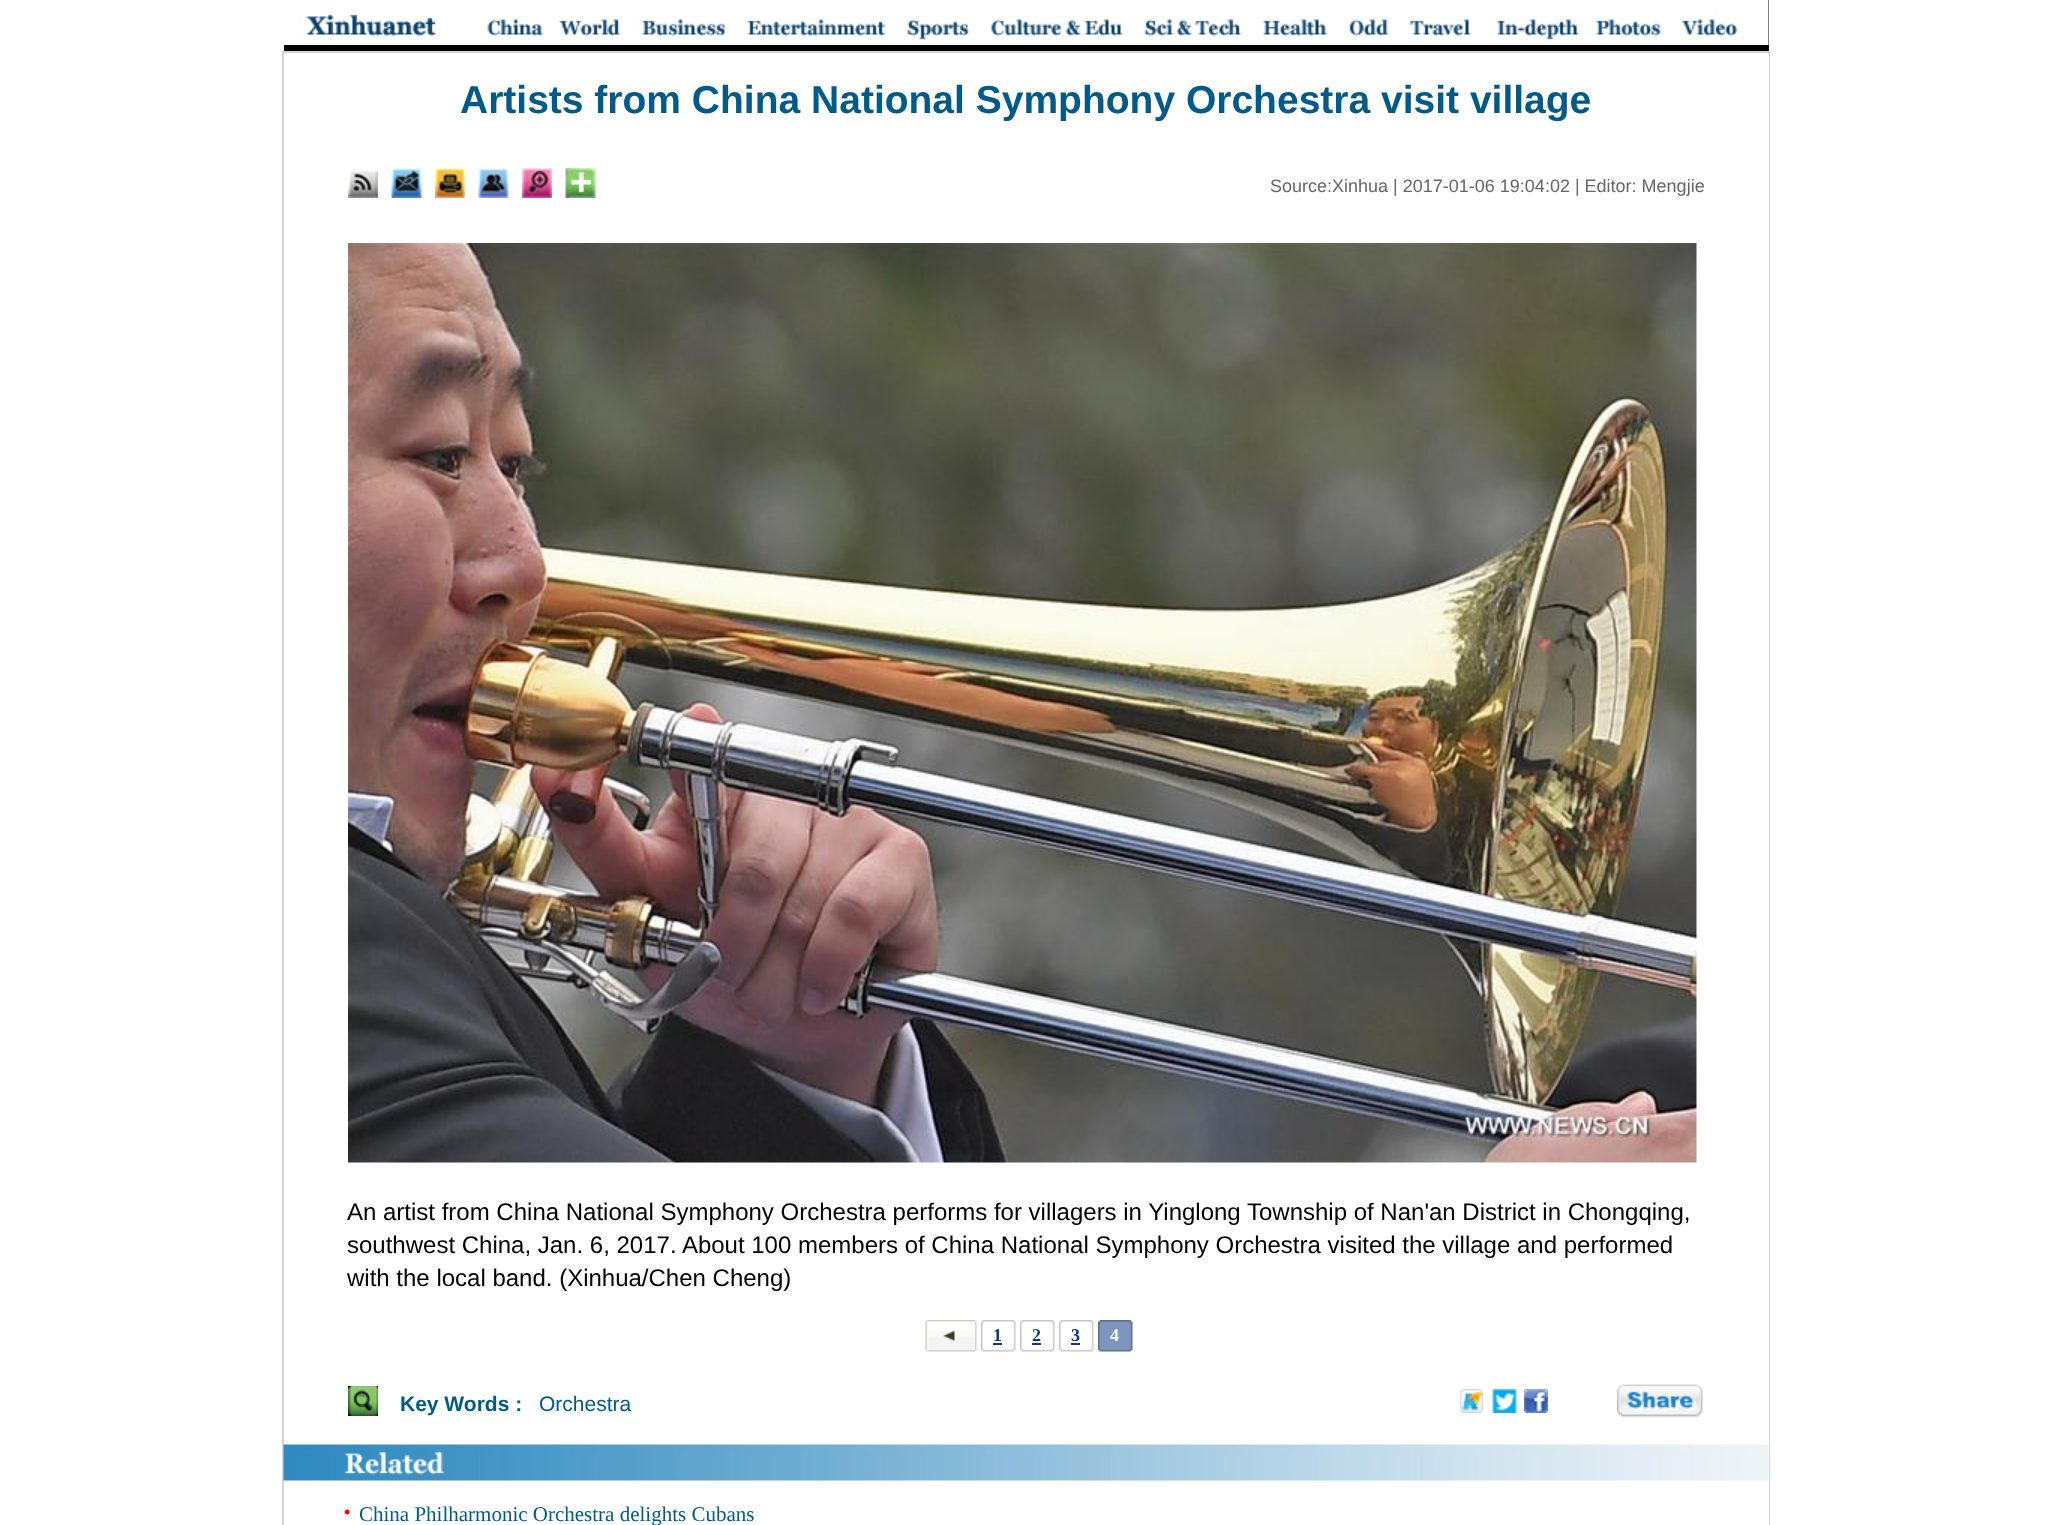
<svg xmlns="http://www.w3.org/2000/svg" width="2051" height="1525">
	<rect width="100%" height="100%" fill="#FFFFFF" />
	<rect x="284" y="0" width="1485" height="51" fill="#000000" />
	<image x="284" y="0" width="1485" height="45" href="assets/img1.png" />
	<rect x="283" y="52" width="1486" height="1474" fill="none" stroke="#D3D4CF" stroke-width="2" />
	<rect x="1768" y="53" width="1" height="1472" fill="#FFFFFF" />
	<text x="460" y="113" font-family="Liberation Sans" font-size="39" font-weight="700" fill="#005B8A">Artists from China National Symphony Orchestra visit village</text>
	<image x="348" y="170" width="30" height="28" href="assets/img2.png" />
	<image x="391" y="168" width="31" height="30" href="assets/img3.png" />
	<image x="435" y="168" width="30" height="30" href="assets/img4.png" />
	<image x="478" y="168" width="31" height="30" href="assets/img5.png" />
	<image x="522" y="168" width="30" height="30" href="assets/img6.png" />
	<image x="565" y="168" width="31" height="30" href="assets/img7.png" />
	<text x="1270" y="192" font-family="Liberation Sans" font-size="18" fill="#666666">Source:Xinhua | 2017-01-06 19:04:02 | Editor: Mengjie</text>
	<image x="348" y="243" width="1349" height="920" href="assets/img8.png" />
	<g font-family="Liberation Sans" font-size="24" fill="#000000">
		<text x="347" y="1220">An artist from China National Symphony Orchestra performs for villagers in Yinglong Township of Nan'an District in Chongqing,</text>
		<text x="347" y="1253">southwest China, Jan. 6, 2017. About 100 members of China National Symphony Orchestra visited the village and performed</text>
		<text x="347" y="1286">with the local band. (Xinhua/Chen Cheng)</text>
	</g>
	<image x="925" y="1320" width="52" height="32" href="assets/img9.png" />
	<image x="981" y="1320" width="35" height="32" href="assets/img10.png" />
	<text x="993" y="1341" font-family="Liberation Serif" font-size="18" font-weight="700" fill="#0B3B8C">1</text>
	<rect x="993" y="1343" width="9" height="2" fill="#0B3B8C" />
	<image x="1020" y="1320" width="35" height="32" href="assets/img11.png" />
	<text x="1032" y="1341" font-family="Liberation Serif" font-size="18" font-weight="700" fill="#0B3B8C">2</text>
	<rect x="1032" y="1343" width="9" height="2" fill="#0B3B8C" />
	<image x="1059" y="1320" width="35" height="32" href="assets/img12.png" />
	<text x="1071" y="1341" font-family="Liberation Serif" font-size="18" font-weight="700" fill="#0B3B8C">3</text>
	<rect x="1071" y="1343" width="9" height="2" fill="#0B3B8C" />
	<image x="1098" y="1320" width="35" height="32" href="assets/img13.png" />
	<text x="1110" y="1341" font-family="Liberation Serif" font-size="18" font-weight="700" fill="#FFFFFF">4</text>
	<image x="348" y="1386" width="30" height="30" href="assets/img14.png" />
	<text x="400" y="1411" font-family="Liberation Sans" font-size="21" font-weight="700" fill="#005B8A">Key Words :</text>
	<text x="539" y="1411" font-family="Liberation Sans" font-size="21" fill="#005B8A">Orchestra</text>
	<image x="1459" y="1389" width="25" height="24" href="assets/img15.png" />
	<image x="1492" y="1389" width="25" height="24" href="assets/img16.png" />
	<image x="1524" y="1389" width="24" height="24" href="assets/img17.png" />
	<image x="1617" y="1384" width="86" height="34" href="assets/img18.png" />
	<image x="283" y="1444" width="1486" height="37" href="assets/img19.png" />
	<text x="344" y="1518" font-family="Liberation Serif" font-size="18" font-weight="700" fill="#FF0000">•</text>
	<text x="359" y="1521" font-family="Liberation Serif" font-size="21" fill="#005B8A">China Philharmonic Orchestra delights Cubans</text>
</svg>
